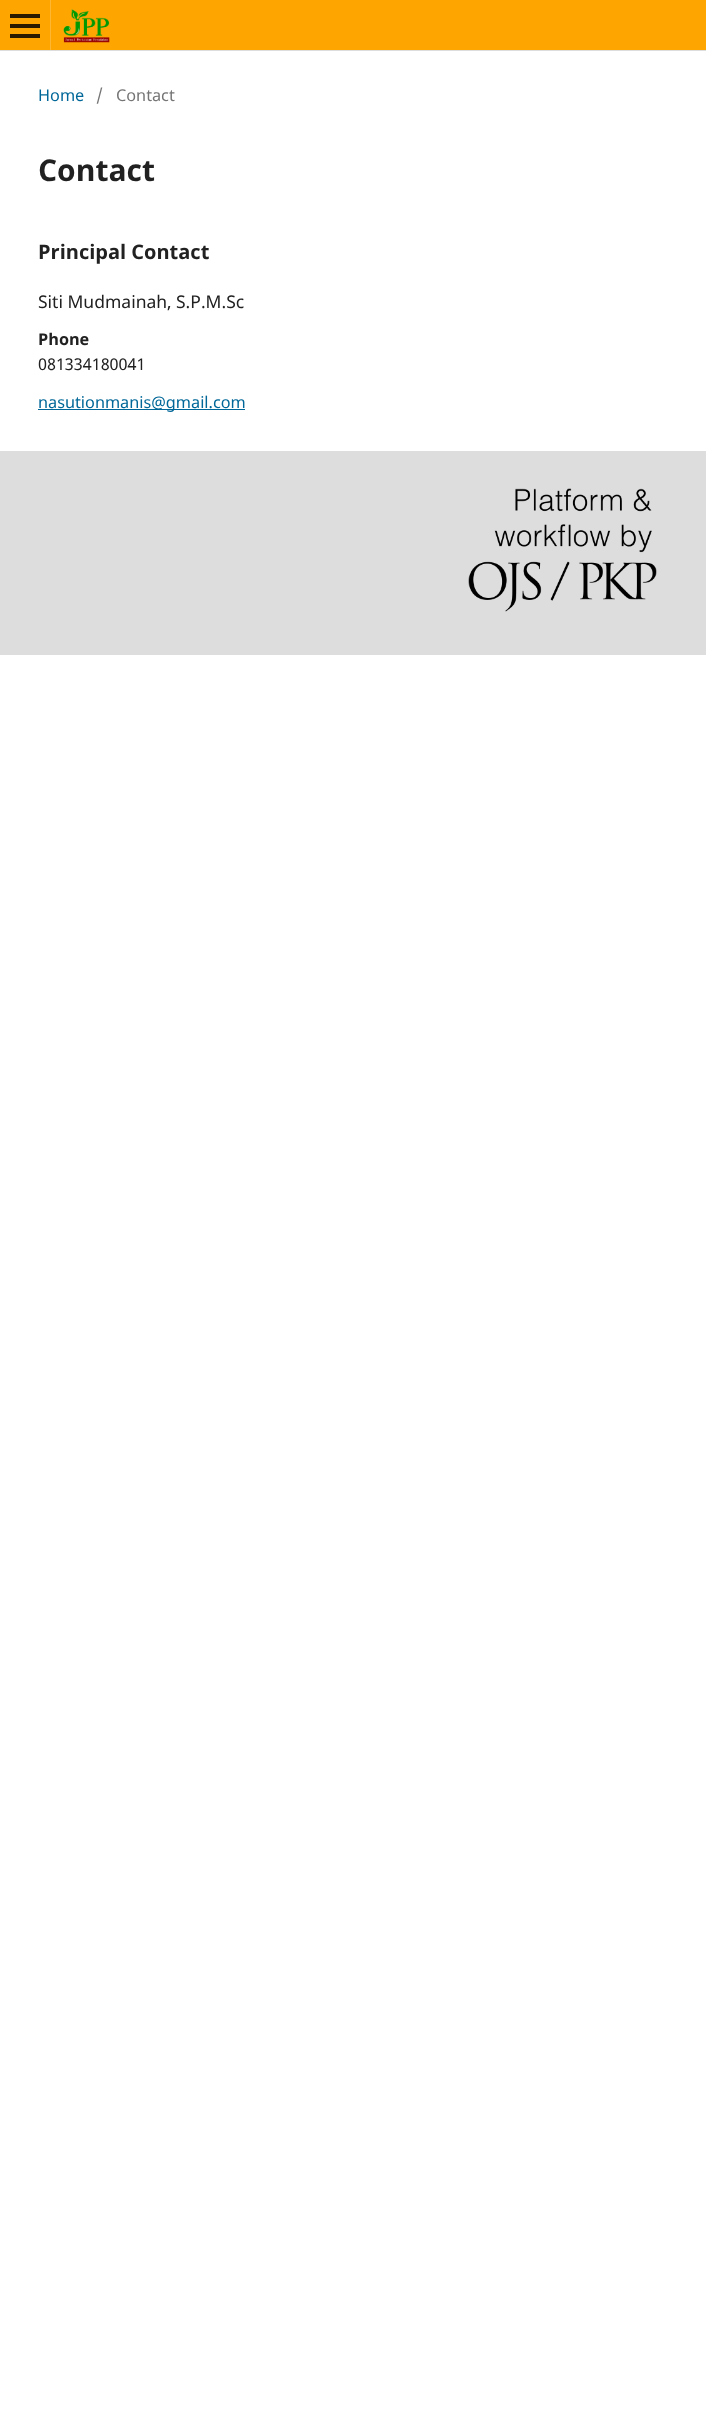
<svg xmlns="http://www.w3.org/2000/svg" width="706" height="2421">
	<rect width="100%" height="100%" fill="#FFFFFF" />
	<rect x="0" y="0" width="706" height="50" fill="#FEA500" />
	<rect x="0" y="50" width="706" height="1" fill="#DDDDDD" />
	<rect x="50" y="0" width="1" height="50" fill="#FEB733" />
	<rect x="10" y="34" width="30" height="4" fill="#291A00" />
	<rect x="10" y="14" width="30" height="4" fill="#291A00" />
	<rect x="10" y="24" width="30" height="4" fill="#291A00" />
	<image x="63" y="9" width="47" height="34" href="assets/img1.png" />
	<text x="38" y="101" font-family="Noto Sans" font-size="16.25" fill="#006798">Home</text>
	<g font-family="Noto Sans" font-size="16.25" fill="#757575">
		<text x="96" y="101">/</text>
		<text x="116" y="101">Contact</text>
	</g>
	<text x="38" y="181" font-family="Noto Sans" font-size="30" font-weight="700" fill="#212121">Contact</text>
	<text x="38" y="259" font-family="Noto Sans" font-size="20" font-weight="700" fill="#212121">Principal Contact</text>
	<text x="38" y="308" font-family="Noto Sans" font-size="17.5" fill="#212121">Siti Mudmainah, S.P.M.Sc</text>
	<text x="38" y="345" font-family="Noto Sans" font-size="16.25" font-weight="700" fill="#212121">Phone</text>
	<text x="38" y="370" font-family="Noto Sans" font-size="16.25" fill="#212121">081334180041</text>
	<rect x="38" y="409" width="207" height="1" fill="#006798" />
	<text x="38" y="408" font-family="Noto Sans" font-size="16.25" fill="#006798">nasutionmanis@gmail.com</text>
	<rect x="0" y="451" width="706" height="204" fill="#DDDDDD" />
	<image x="468" y="488" width="189" height="124" href="assets/img2.png" />
</svg>
